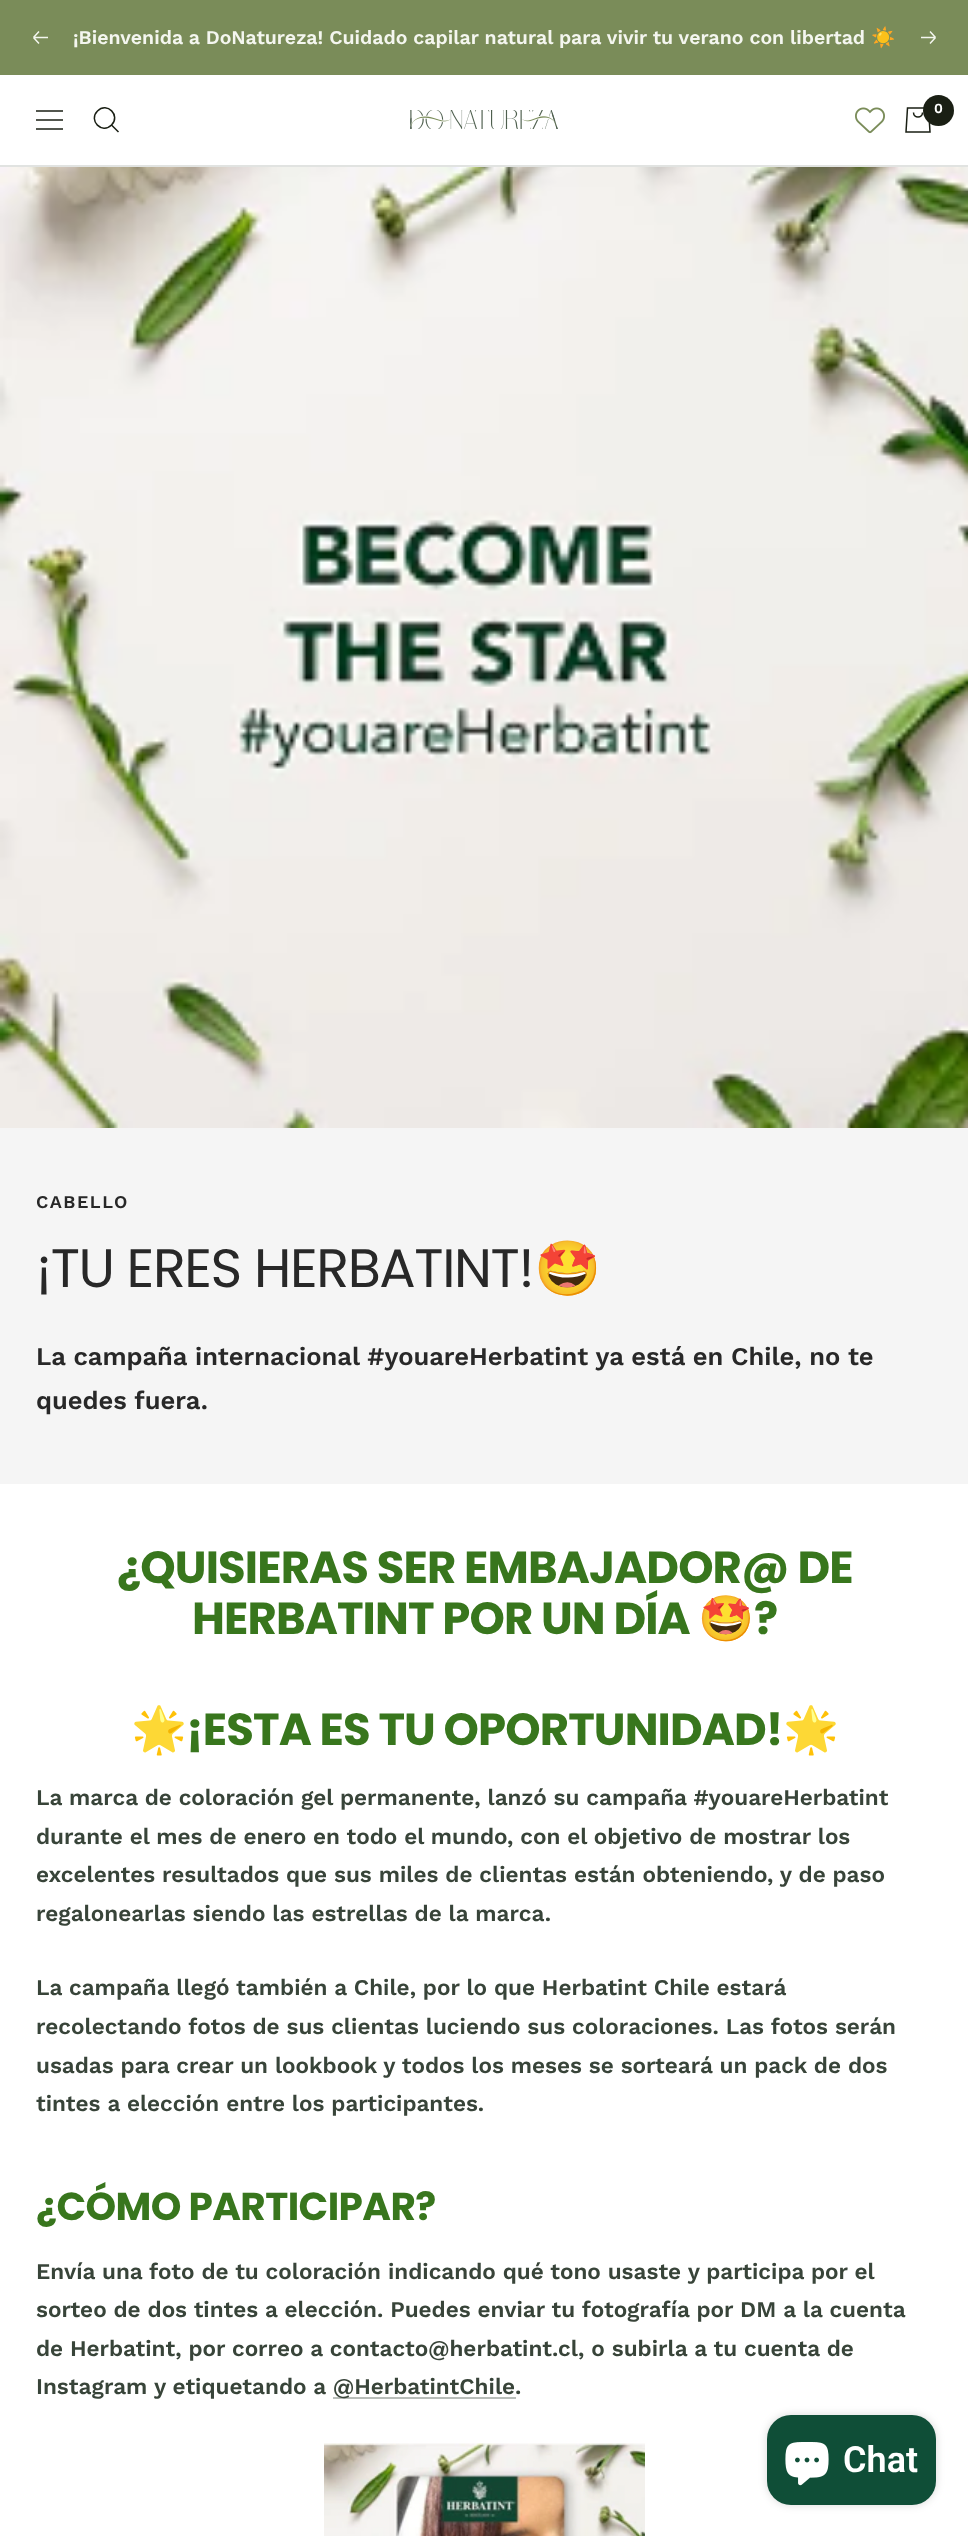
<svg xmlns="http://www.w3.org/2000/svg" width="968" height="2536">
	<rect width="100%" height="100%" fill="#FFFFFF" />
	<rect x="0" y="0" width="968" height="75" fill="#7A8C59" />
	<path d="M48 37.5H33.5M33.5 37.5L39 43.5M33.5 37.5L39 31.5" fill="none" stroke="#F4F6EF" stroke-width="1.5" />
	<text x="73" y="44" font-family="Work Sans" font-size="19.5" font-weight="600" fill="#F4F6EF">¡Bienvenida a DoNatureza! Cuidado capilar natural para vivir tu verano con libertad</text>
	<text x="871" y="44" font-family="Noto Color Emoji" font-size="19.5" font-weight="700" fill="#F4F6EF">☀️</text>
	<path d="M921 37.5H935.5M935.5 37.5L930 43.5M935.5 37.5L930 31.5" fill="none" stroke="#F4F6EF" stroke-width="1.5" />
	<rect x="0" y="165" width="968" height="2" fill="#E1E3E1" />
	<path d="M36 111H63M36 129H63ZM36 120H63Z" fill="none" stroke="#1A1F14" stroke-width="1.5" />
	<path d="M111.5 125C121 115.5 107 101.5 97.5 111C88 120.5 102 134.5 111.5 125ZM111.5 125L118.5 132" fill="none" stroke="#1A1F14" stroke-width="1.5" />
	<image x="410" y="110" width="148" height="19" href="assets/img1.png" />
	<image x="855" y="107" width="30" height="27" href="assets/img2.png" />
	<path d="M907.5 108H928.5L930 132H906ZM913.5 112.5C913.5 118.5 922.5 118.5 922.5 112.5" fill="none" stroke="#1A1F14" stroke-width="1.5" />
	<circle cx="938.5" cy="110.5" r="15.5" fill="#1A1F14" />
	<text x="934" y="113" font-family="Work Sans" font-size="14" font-weight="600" fill="#FFFFFF">0</text>
	<rect x="0" y="1128" width="968" height="356" fill="#F5F5F5" />
	<image x="0" y="167" width="968" height="961" href="assets/img3.png" />
	<text x="36" y="1208" font-family="Work Sans" font-size="18" font-weight="600" letter-spacing="1.5" fill="#282828">CABELLO</text>
	<text x="36" y="1287" font-family="Poppins" font-size="54" letter-spacing="-1.4" fill="#282828">¡TU ERES HERBATINT!</text>
	<text x="534" y="1287" font-family="Noto Color Emoji" font-size="54" letter-spacing="-1.4" fill="#282828">🤩</text>
	<g font-family="Work Sans" font-size="25.5" font-weight="600" fill="#282828">
		<text x="36" y="1365">La campaña internacional #youareHerbatint ya está en Chile, no te</text>
		<text x="36" y="1409">quedes fuera.</text>
	</g>
	<g font-family="Poppins" font-size="45" font-weight="700" letter-spacing="-0.9" fill="#38761D">
		<text x="117" y="1583">¿QUISIERAS SER EMBAJADOR@ DE</text>
		<text x="192" y="1634">HERBATINT POR UN DÍA</text>
	</g>
	<text x="698" y="1634" font-family="Noto Color Emoji" font-size="45" font-weight="700" letter-spacing="-0.9" fill="#38761D">🤩</text>
	<text x="754" y="1634" font-family="Poppins" font-size="45" font-weight="700" letter-spacing="-0.9" fill="#38761D">?</text>
	<text x="131" y="1745" font-family="Noto Color Emoji" font-size="45" font-weight="700" letter-spacing="-0.9" fill="#38761D">🌟</text>
	<text x="186" y="1745" font-family="Poppins" font-size="45" font-weight="700" letter-spacing="-0.9" fill="#38761D">¡ESTA ES TU OPORTUNIDAD!</text>
	<text x="783" y="1745" font-family="Noto Color Emoji" font-size="45" font-weight="700" letter-spacing="-0.9" fill="#38761D">🌟</text>
	<g font-family="Work Sans" font-size="22.5" font-weight="600" fill="#384439">
		<text x="36" y="1805">La marca de coloración gel permanente, lanzó su campaña #youareHerbatint</text>
		<text x="36" y="1844">durante el mes de enero en todo el mundo, con el objetivo de mostrar los</text>
		<text x="36" y="1882">excelentes resultados que sus miles de clientas están obteniendo, y de paso</text>
		<text x="36" y="1921">regalonearlas siendo las estrellas de la marca.</text>
		<text x="36" y="1995">La campaña llegó también a Chile, por lo que Herbatint Chile estará</text>
		<text x="36" y="2034">recolectando fotos de sus clientas luciendo sus coloraciones. Las fotos serán</text>
		<text x="36" y="2073">usadas para crear un lookbook y todos los meses se sorteará un pack de dos</text>
		<text x="36" y="2111">tintes a elección entre los participantes.</text>
	</g>
	<text x="36" y="2220" font-family="Poppins" font-size="39" font-weight="700" letter-spacing="-0.6" fill="#38761D">¿CÓMO PARTICIPAR?</text>
	<g font-family="Work Sans" font-size="22.5" font-weight="600" fill="#384439">
		<text x="36" y="2279">Envía una foto de tu coloración indicando qué tono usaste y participa por el</text>
		<text x="36" y="2317">sorteo de dos tintes a elección. Puedes enviar tu fotografía por DM a la cuenta</text>
		<text x="36" y="2356">de Herbatint, por correo a contacto@herbatint.cl, o subirla a tu cuenta de</text>
		<text x="36" y="2394">Instagram y etiquetando a</text>
	</g>
	<rect x="333" y="2397" width="183" height="2" fill="#B9BEBA" />
	<text x="333" y="2394" font-family="Work Sans" font-size="22.5" font-weight="600" fill="#384439">@HerbatintChile.</text>
	<image x="324" y="2443" width="321" height="93" href="assets/img4.png" />
	<rect x="767" y="2415" width="169" height="90" rx="24" fill="#000000" fill-opacity="0.15" filter="blur(4px)" />
	<rect x="767" y="2415" width="169" height="90" rx="24" fill="#0F4E37" />
	<image x="785" y="2442" width="44" height="44" href="assets/img5.png" />
	<text x="843" y="2472" font-family="Roboto" font-size="36" font-weight="600" fill="#FFFFFF">Chat</text>
</svg>
